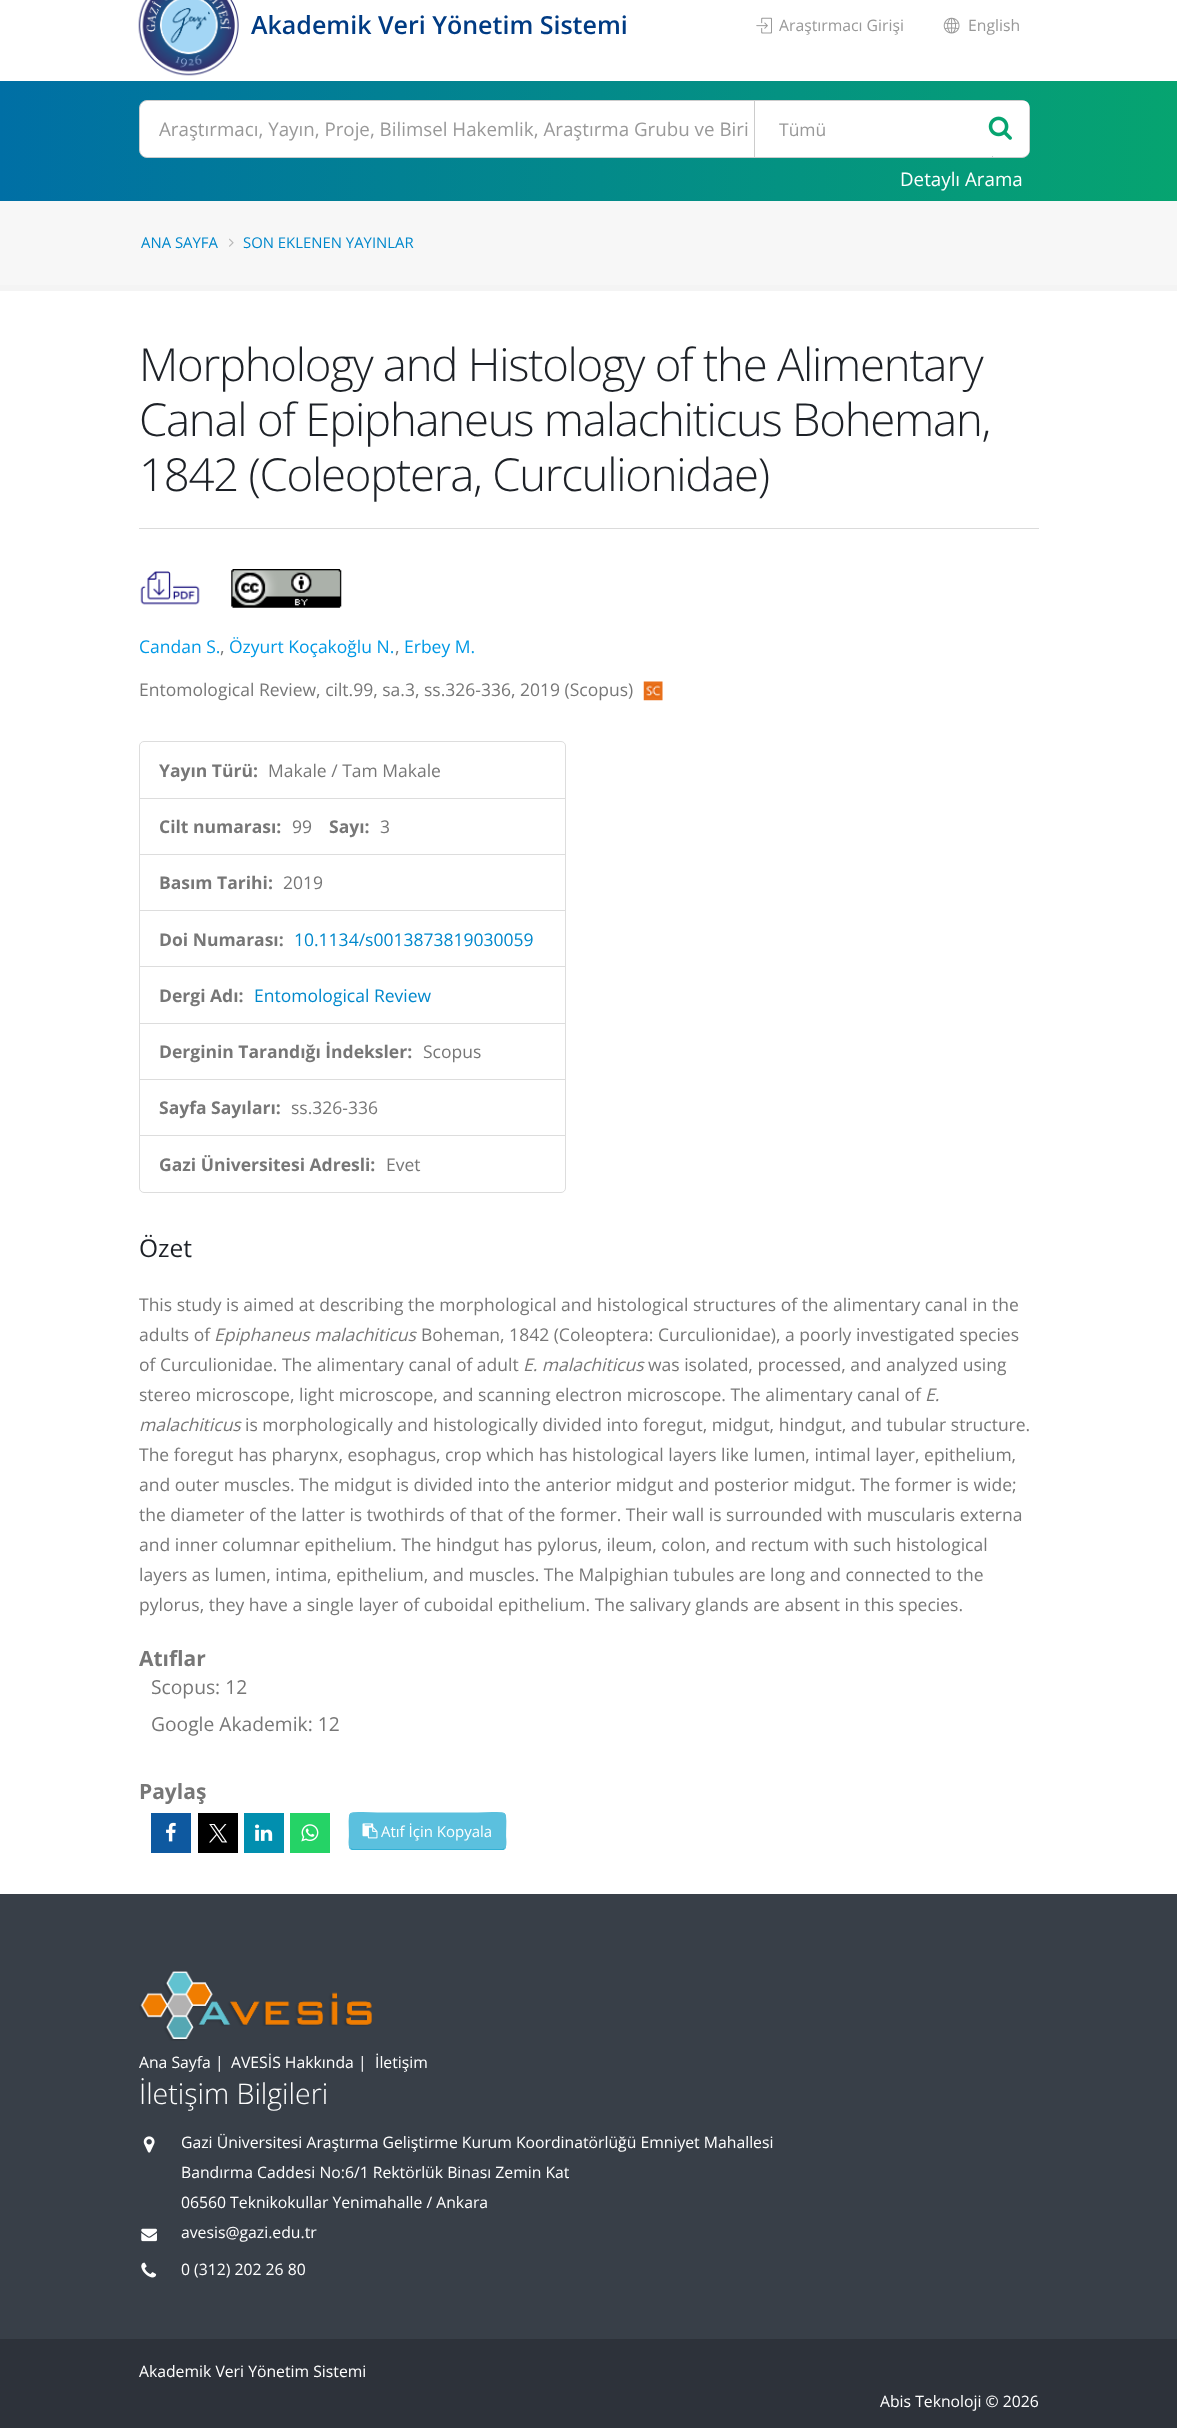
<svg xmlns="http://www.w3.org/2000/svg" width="1177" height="2428">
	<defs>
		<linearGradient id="g1" gradientUnits="userSpaceOnUse" x1="0" y1="141" x2="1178" y2="141"><stop offset="0" stop-color="#006FA5" /><stop offset="1" stop-color="#06A470" /></linearGradient>
	</defs>
	<rect width="100%" height="100%" fill="#FFFFFF" />
	<image x="138" y="0" width="101" height="76" href="assets/img1.png" />
	<text x="251" y="34" font-family="Open Sans" font-size="25" font-weight="600" fill="#003B83">Akademik Veri Yönetim Sistemi</text>
	<image x="756" y="17" width="16" height="17" href="assets/img2.png" />
	<text x="779" y="31" font-family="Open Sans" font-size="15.75" fill="#999999">Araştırmacı Girişi</text>
	<image x="943" y="17" width="17" height="17" href="assets/img3.png" />
	<text x="968" y="31" font-family="Open Sans" font-size="15.75" fill="#999999">English</text>
	<rect x="0" y="81" width="1177" height="120" fill="url(#g1)" />
	<rect x="139.5" y="100.5" width="890" height="57" rx="7.5" fill="#FFFFFF" stroke="#CCCCCC" />
	<text x="159" y="136" font-family="Open Sans" font-size="18.75" fill="#999999">Araştırmacı, Yayın, Proje, Bilimsel Hakemlik, Araştırma Grubu ve Biri</text>
	<rect x="754.5" y="100.5" width="238" height="57" fill="none" stroke="#CCCCCC" />
	<text x="779" y="136" font-family="Open Sans" font-size="17.5" fill="#999999">Tümü</text>
	<rect x="973" y="101" width="56" height="55" rx="5" fill="#FFFFFF" />
	<image x="988" y="116" width="24" height="24" href="assets/img4.png" />
	<text x="900" y="186" font-family="Open Sans" font-size="18.75" fill="#FFFFFF">Detaylı Arama</text>
	<rect x="0" y="201" width="1177" height="84" fill="#F7F7F7" />
	<rect x="0" y="285" width="1177" height="6" fill="#F4F4F4" />
	<text x="141" y="248" font-family="Open Sans" font-size="14.9" fill="#0088CC">ANA SAYFA</text>
	<image x="229" y="238" width="5" height="9" href="assets/img5.png" />
	<text x="243" y="248" font-family="Open Sans" font-size="14.9" fill="#0088CC">SON EKLENEN YAYINLAR</text>
	<g font-family="Open Sans" font-size="45.5" font-weight="300" letter-spacing="-1.25" fill="#1D2127">
		<text x="139" y="381">Morphology and Histology of the Alimentary</text>
		<text x="139" y="436">Canal of Epiphaneus malachiticus Boheman,</text>
		<text x="139" y="491">1842 (Coleoptera, Curculionidae)</text>
	</g>
	<rect x="139" y="528" width="900" height="1" fill="#DBDBDB" />
	<image x="140" y="571" width="60" height="34" href="assets/img6.png" />
	<image x="231" y="569" width="111" height="39" href="assets/img7.png" />
	<text x="139" y="653" font-family="Open Sans" font-size="17.5" fill="#0099E6">Candan S.</text>
	<text x="220" y="653" font-family="Open Sans" font-size="17.5" fill="#777777">,</text>
	<text x="229" y="653" font-family="Open Sans" font-size="17.5" fill="#0099E6">Özyurt Koçakoğlu N.</text>
	<text x="395" y="653" font-family="Open Sans" font-size="17.5" fill="#777777">,</text>
	<text x="404" y="653" font-family="Open Sans" font-size="17.5" fill="#0099E6">Erbey M.</text>
	<text x="139" y="696" font-family="Open Sans" font-size="17.5" fill="#777777">Entomological Review, cilt.99, sa.3, ss.326-336, 2019 (Scopus)</text>
	<image x="643" y="681" width="20" height="20" href="assets/img8.png" />
	<path d="M144 741.5H561C563.5 741.5 565.5 743.5 565.5 746V798.5H139.5V746C139.5 743.5 141.5 741.5 144 741.5Z" fill="none" stroke="#DDDDDD" />
	<text x="159" y="777" font-family="Open Sans" font-size="17.5" font-weight="700" fill="#777777">Yayın Türü:</text>
	<text x="268" y="777" font-family="Open Sans" font-size="17.5" fill="#777777">Makale / Tam Makale</text>
	<rect x="139.5" y="798.5" width="426" height="56" fill="none" stroke="#DDDDDD" />
	<text x="159" y="833" font-family="Open Sans" font-size="17.5" font-weight="700" fill="#777777">Cilt numarası:</text>
	<text x="292" y="833" font-family="Open Sans" font-size="17.5" fill="#777777">99</text>
	<text x="329" y="833" font-family="Open Sans" font-size="17.5" font-weight="700" fill="#777777">Sayı:</text>
	<text x="380" y="833" font-family="Open Sans" font-size="17.5" fill="#777777">3</text>
	<rect x="139.5" y="854.5" width="426" height="56" fill="none" stroke="#DDDDDD" />
	<text x="159" y="889" font-family="Open Sans" font-size="17.5" font-weight="700" fill="#777777">Basım Tarihi:</text>
	<text x="283" y="889" font-family="Open Sans" font-size="17.5" fill="#777777">2019</text>
	<rect x="139.5" y="910.5" width="426" height="57" fill="none" stroke="#DDDDDD" />
	<text x="159" y="946" font-family="Open Sans" font-size="17.5" font-weight="700" fill="#777777">Doi Numarası:</text>
	<text x="294" y="946" font-family="Open Sans" font-size="17.5" fill="#0088CC">10.1134/s0013873819030059</text>
	<rect x="140" y="967" width="425" height="1" fill="#FFFFFF" />
	<rect x="139.5" y="966.5" width="426" height="57" fill="none" stroke="#DDDDDD" />
	<text x="159" y="1002" font-family="Open Sans" font-size="17.5" font-weight="700" fill="#777777">Dergi Adı:</text>
	<text x="254" y="1002" font-family="Open Sans" font-size="17.5" fill="#0088CC">Entomological Review</text>
	<rect x="139.5" y="1023.5" width="426" height="56" fill="none" stroke="#DDDDDD" />
	<text x="159" y="1058" font-family="Open Sans" font-size="17.5" font-weight="700" fill="#777777">Derginin Tarandığı İndeksler:</text>
	<text x="423" y="1058" font-family="Open Sans" font-size="17.5" fill="#777777">Scopus</text>
	<rect x="139.5" y="1079.5" width="426" height="56" fill="none" stroke="#DDDDDD" />
	<text x="159" y="1114" font-family="Open Sans" font-size="17.5" font-weight="700" fill="#777777">Sayfa Sayıları:</text>
	<text x="291" y="1114" font-family="Open Sans" font-size="17.5" fill="#777777">ss.326-336</text>
	<path d="M139.5 1135.5H565.5V1188C565.5 1190.5 563.5 1192.5 561 1192.5H144C141.5 1192.5 139.5 1190.5 139.5 1188Z" fill="#FFFFFF" stroke="#DDDDDD" />
	<text x="159" y="1171" font-family="Open Sans" font-size="17.5" font-weight="700" fill="#777777">Gazi Üniversitesi Adresli:</text>
	<text x="386" y="1171" font-family="Open Sans" font-size="17.5" fill="#777777">Evet</text>
	<text x="139" y="1257" font-family="Open Sans" font-size="24.5" fill="#1D2127">Özet</text>
	<g font-family="Open Sans" font-size="17.5" fill="#777777">
		<text x="139" y="1311">This study is aimed at describing the morphological and histological structures of the alimentary canal in the</text>
		<text x="139" y="1341">adults of</text>
	</g>
	<text x="214" y="1341" font-family="Open Sans" font-size="17.5" font-style="italic" fill="#777777">Epiphaneus malachiticus</text>
	<g font-family="Open Sans" font-size="17.5" fill="#777777">
		<text x="421" y="1341">Boheman, 1842 (Coleoptera: Curculionidae), a poorly investigated species</text>
		<text x="139" y="1371">of Curculionidae. The alimentary canal of adult</text>
	</g>
	<text x="523" y="1371" font-family="Open Sans" font-size="17.5" font-style="italic" fill="#777777">E. malachiticus</text>
	<g font-family="Open Sans" font-size="17.5" fill="#777777">
		<text x="648" y="1371">was isolated, processed, and analyzed using</text>
		<text x="139" y="1401">stereo microscope, light microscope, and scanning electron microscope. The alimentary canal of</text>
	</g>
	<g font-family="Open Sans" font-size="17.5" font-style="italic" fill="#777777">
		<text x="925" y="1401">E.</text>
		<text x="139" y="1431">malachiticus</text>
	</g>
	<g font-family="Open Sans" font-size="17.5" fill="#777777">
		<text x="245" y="1431">is morphologically and histologically divided into foregut, midgut, hindgut, and tubular structure.</text>
		<text x="139" y="1461">The foregut has pharynx, esophagus, crop which has histological layers like lumen, intimal layer, epithelium,</text>
		<text x="139" y="1491">and outer muscles. The midgut is divided into the anterior midgut and posterior midgut. The former is wide;</text>
		<text x="139" y="1521">the diameter of the latter is twothirds of that of the former. Their wall is surrounded with muscularis externa</text>
		<text x="139" y="1551">and inner columnar epithelium. The hindgut has pylorus, ileum, colon, and rectum with such histological</text>
		<text x="139" y="1581">layers as lumen, intima, epithelium, and muscles. The Malpighian tubules are long and connected to the</text>
		<text x="139" y="1611">pylorus, they have a single layer of cuboidal epithelium. The salivary glands are absent in this species.</text>
	</g>
	<text x="139" y="1666" font-family="Open Sans" font-size="21" font-weight="700" fill="#777777">Atıflar</text>
	<g font-family="Open Sans" font-size="19.25" fill="#777777">
		<text x="151" y="1694">Scopus: 12</text>
		<text x="151" y="1731">Google Akademik: 12</text>
	</g>
	<text x="139" y="1799" font-family="Open Sans" font-size="21" font-weight="700" fill="#777777">Paylaş</text>
	<rect x="151" y="1813" width="40" height="40" fill="#0E59A0" />
	<image x="166" y="1822" width="10" height="20" href="assets/img9.png" />
	<rect x="198" y="1813" width="40" height="40" fill="#000000" />
	<image x="209" y="1824" width="19" height="19" href="assets/img10.png" />
	<rect x="244" y="1813" width="40" height="40" fill="#018FAF" />
	<image x="255" y="1824" width="18" height="17" href="assets/img11.png" />
	<rect x="290" y="1813" width="40" height="40" fill="#25D366" />
	<image x="301" y="1824" width="18" height="18" href="assets/img12.png" />
	<rect x="349" y="1813" width="157" height="37" rx="4" fill="#5BC0DE" />
	<path d="M504.5 1848.5L503 1849.5H377.5H352.5L350.5 1848.5" fill="none" stroke="#31B0D5" stroke-width="1.2" />
	<path d="M350.5 1848.5C348 1846 349.5 1839 349.5 1836C349.5 1806.5 344 1813 377.5 1813H477.5C511 1813 505.5 1806.5 505.5 1836C505.5 1839 507 1846 504.5 1848.5" fill="none" stroke="#5BC0DE" stroke-width="1.2" />
	<image x="362" y="1823" width="16" height="16" href="assets/img13.png" />
	<text x="381" y="1837" font-family="Open Sans" font-size="15" fill="#FFFFFF">Atıf İçin Kopyala</text>
	<rect x="0" y="1894" width="1177" height="445" fill="#383F48" />
	<image x="139" y="1971" width="233" height="70" href="assets/img14.png" />
	<g font-family="Open Sans" font-size="15.75" fill="#FFFFFF">
		<text x="139" y="2068">Ana Sayfa |</text>
		<text x="231" y="2068">AVESİS Hakkında |</text>
		<text x="375" y="2068">İletişim</text>
	</g>
	<text x="139" y="2104" font-family="Open Sans" font-size="28.5" font-weight="300" fill="#FFFFFF">İletişim Bilgileri</text>
	<image x="143" y="2136" width="12" height="17" href="assets/img15.png" />
	<g font-family="Open Sans" font-size="15.75" fill="#FFFFFF">
		<text x="181" y="2148">Gazi Üniversitesi Araştırma Geliştirme Kurum Koordinatörlüğü Emniyet Mahallesi</text>
		<text x="181" y="2178">Bandırma Caddesi No:6/1 Rektörlük Binası Zemin Kat</text>
		<text x="181" y="2208">06560 Teknikokullar Yenimahalle / Ankara</text>
	</g>
	<image x="141" y="2228" width="16" height="14" href="assets/img16.png" />
	<text x="181" y="2238" font-family="Open Sans" font-size="15.75" fill="#FFFFFF">avesis@gazi.edu.tr</text>
	<image x="141" y="2262" width="16" height="16" href="assets/img17.png" />
	<text x="181" y="2275" font-family="Open Sans" font-size="15.75" fill="#FFFFFF">0 (312) 202 26 80</text>
	<rect x="0" y="2339" width="1177" height="89" fill="#2D323A" />
	<g font-family="Open Sans" font-size="15.75" fill="#FFFFFF">
		<text x="139" y="2377">Akademik Veri Yönetim Sistemi</text>
		<text x="880" y="2407">Abis Teknoloji © 2026</text>
	</g>
</svg>
